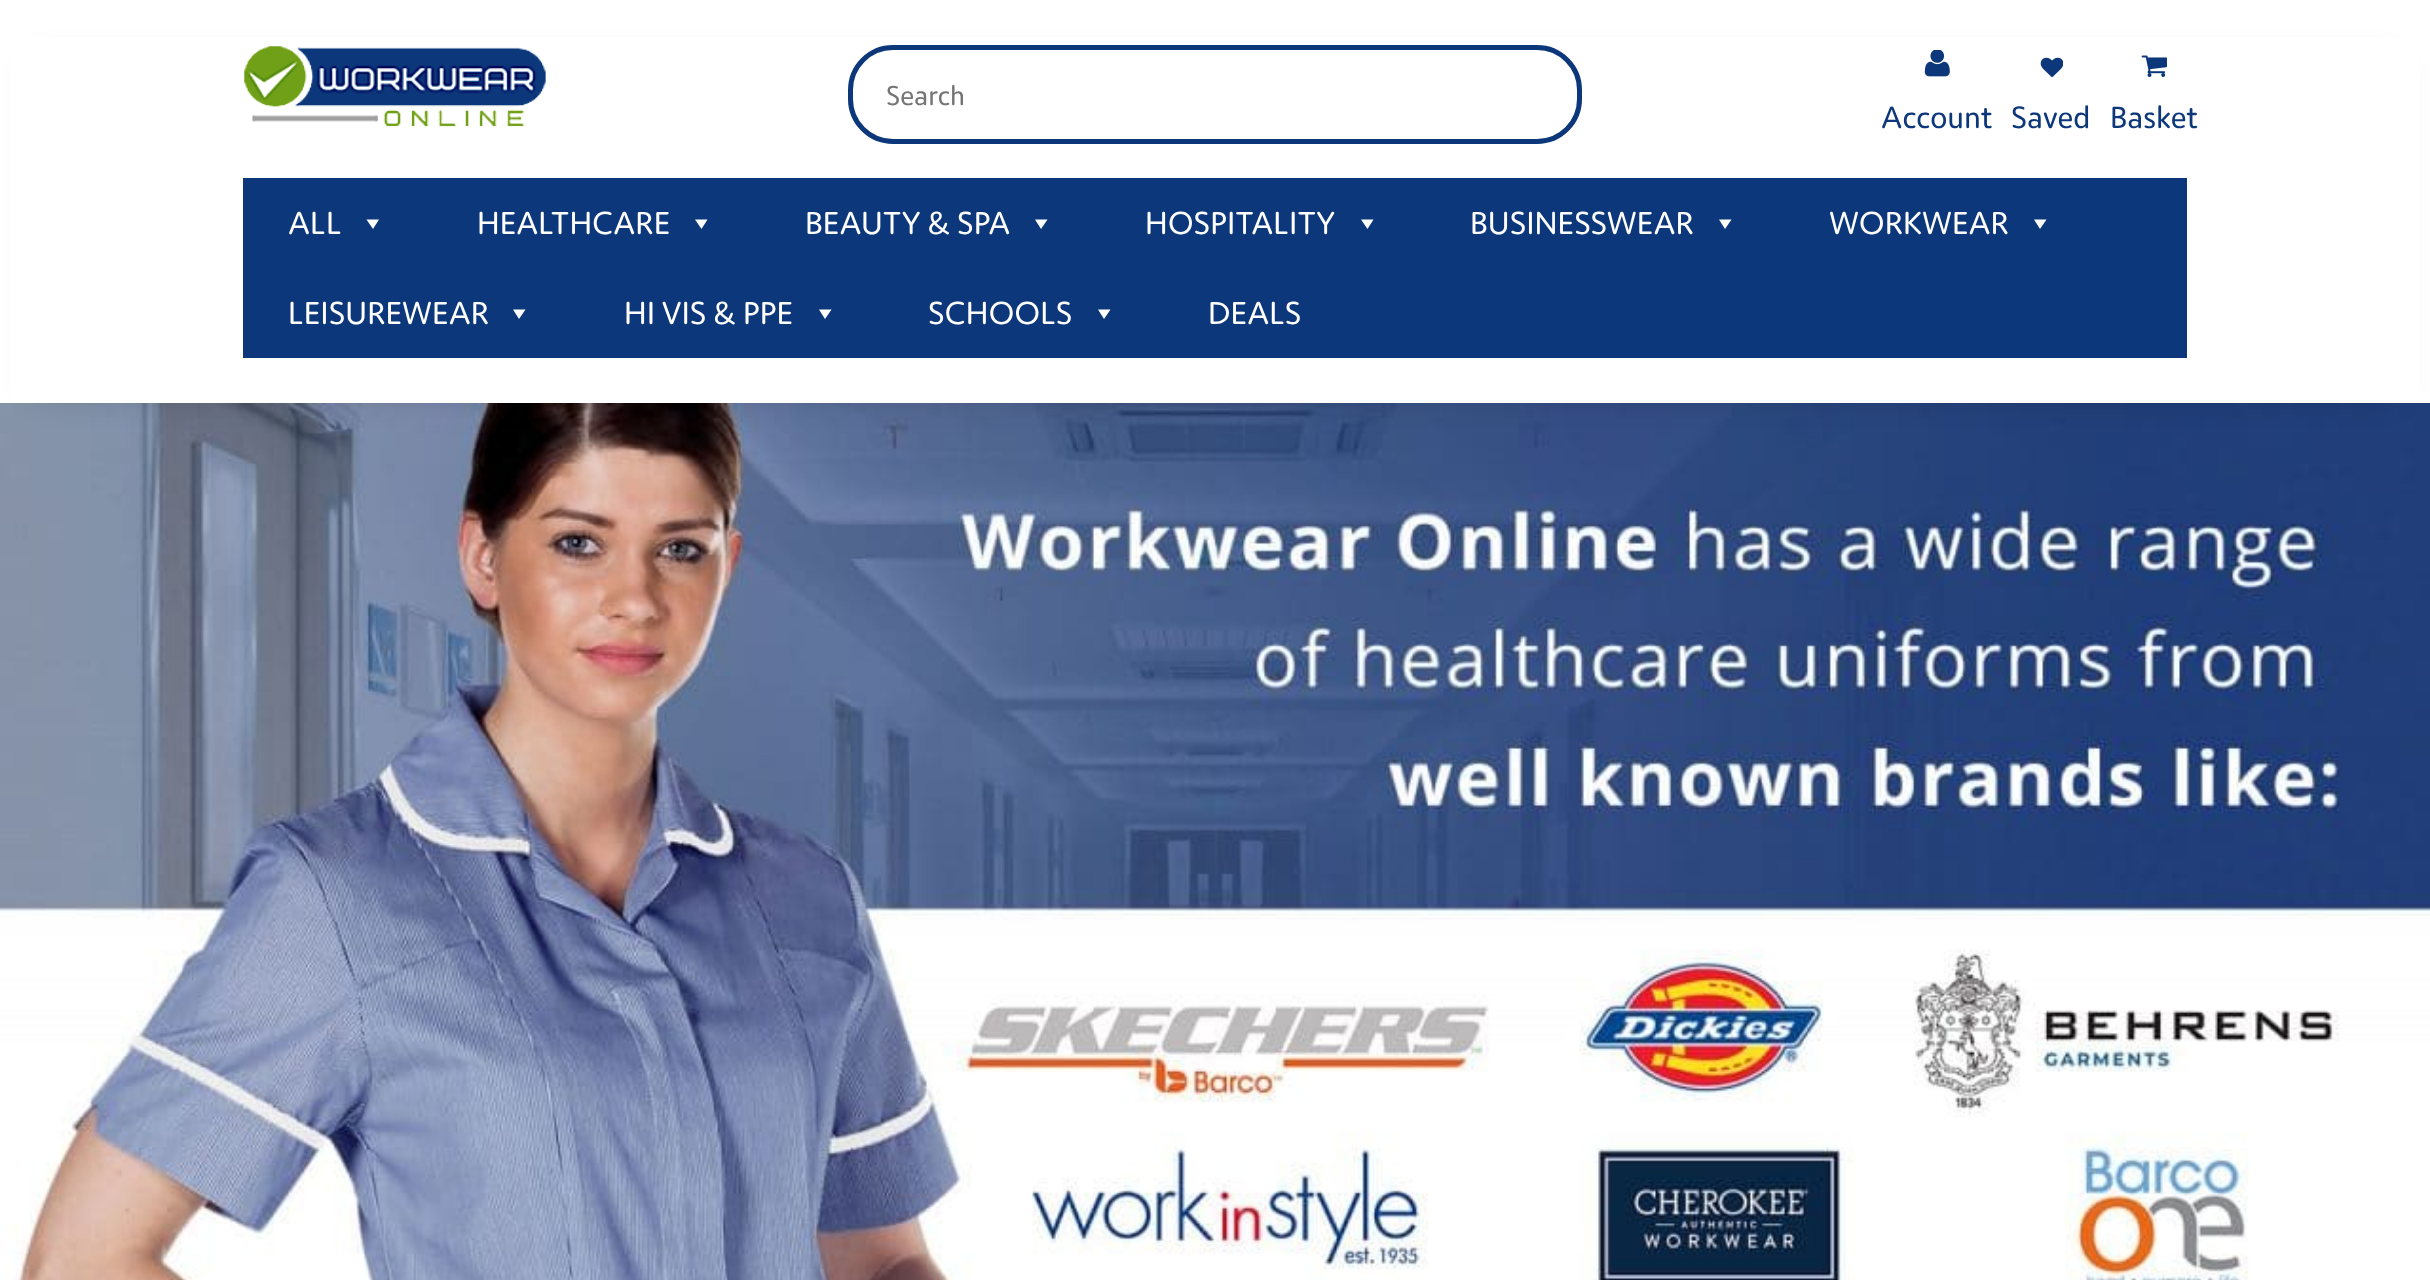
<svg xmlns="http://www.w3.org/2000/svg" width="2430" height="1280">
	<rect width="100%" height="100%" fill="#FFFFFF" />
	<image x="0" y="403" width="2430" height="877" href="assets/img5.png" />
	<rect x="36" y="63" width="2358" height="331" fill="#000000" fill-opacity="0.2" filter="blur(16px)" />
	<rect x="10" y="37" width="2410" height="366" fill="#FFFFFF" />
	<image x="244" y="46" width="302" height="81" href="assets/img1.png" />
	<rect x="850.5" y="47.5" width="729" height="94" rx="42.5" fill="none" stroke="#0C377A" stroke-width="5" />
	<text x="886" y="105" font-family="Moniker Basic" font-size="27" fill="#757575">Search</text>
	<image x="1924" y="50" width="26" height="27" href="assets/img2.png" />
	<text x="1881" y="128" font-family="Moniker Basic" font-size="30.5" fill="#0C377A">Account</text>
	<image x="2040" y="57" width="23" height="21" href="assets/img3.png" />
	<text x="2011" y="128" font-family="Moniker Basic" font-size="30.5" fill="#0C377A">Saved</text>
	<image x="2141" y="55" width="26" height="22" href="assets/img4.png" />
	<text x="2110" y="128" font-family="Moniker Basic" font-size="30.5" fill="#0C377A">Basket</text>
	<rect x="243" y="178" width="1944" height="180" fill="#0C377A" />
	<text x="288" y="234" font-family="Moniker Basic" font-size="31.5" fill="#FFFFFF">ALL</text>
	<path d="M379 219.5L373 229L366.5 219.5Z" fill="#FFFFFF" />
	<text x="477" y="234" font-family="Moniker Basic" font-size="31.5" fill="#FFFFFF">HEALTHCARE</text>
	<path d="M707.5 219.5L701.5 229L695 219.5Z" fill="#FFFFFF" />
	<text x="805" y="234" font-family="Moniker Basic" font-size="31.5" fill="#FFFFFF">BEAUTY &amp; SPA</text>
	<path d="M1047.5 219.5L1041 229L1035 219.5Z" fill="#FFFFFF" />
	<text x="1145" y="234" font-family="Moniker Basic" font-size="31.5" fill="#FFFFFF">HOSPITALITY</text>
	<path d="M1373.5 219.5L1367.5 229L1361 219.5Z" fill="#FFFFFF" />
	<text x="1470" y="234" font-family="Moniker Basic" font-size="31.5" fill="#FFFFFF">BUSINESSWEAR</text>
	<path d="M1731.5 219.5L1725 229L1719 219.5Z" fill="#FFFFFF" />
	<text x="1829" y="234" font-family="Moniker Basic" font-size="31.5" fill="#FFFFFF">WORKWEAR</text>
	<path d="M2046.5 219.5L2040 229L2034 219.5Z" fill="#FFFFFF" />
	<text x="288" y="324" font-family="Moniker Basic" font-size="31.5" fill="#FFFFFF">LEISUREWEAR</text>
	<path d="M525.5 309.5L519 319L513 309.5Z" fill="#FFFFFF" />
	<text x="624" y="324" font-family="Moniker Basic" font-size="31.5" fill="#FFFFFF">HI VIS &amp; PPE</text>
	<path d="M831.5 309.5L825 319L819 309.5Z" fill="#FFFFFF" />
	<text x="928" y="324" font-family="Moniker Basic" font-size="31.5" fill="#FFFFFF">SCHOOLS</text>
	<path d="M1110.5 309.5L1104 319L1098 309.5Z" fill="#FFFFFF" />
	<text x="1208" y="324" font-family="Moniker Basic" font-size="31.5" fill="#FFFFFF">DEALS</text>
</svg>
